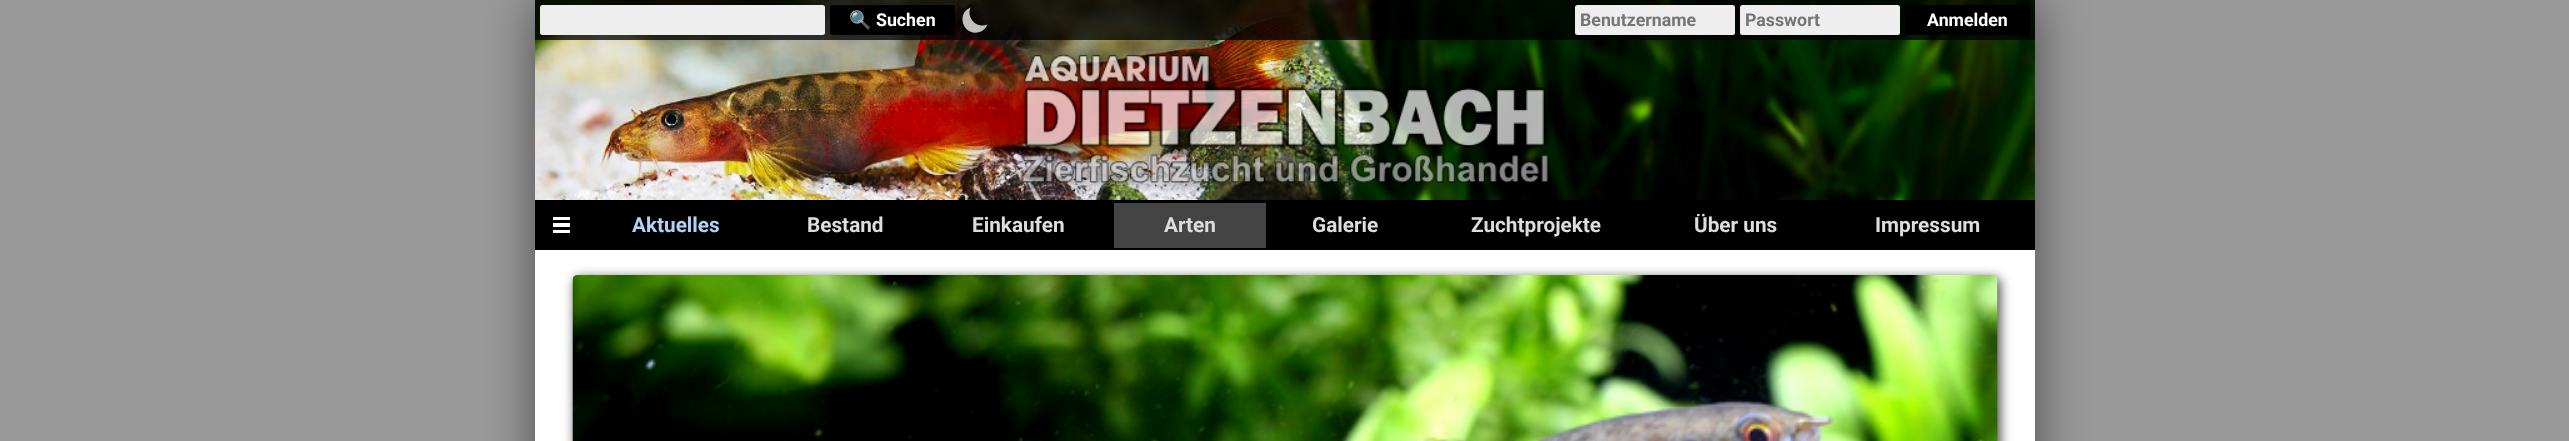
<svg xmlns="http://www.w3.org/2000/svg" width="2569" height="441">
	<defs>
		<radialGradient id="g1" gradientUnits="userSpaceOnUse" cx="0" cy="0" r="1" gradientTransform="matrix(88 0 0 21 893 20)"><stop offset="0" stop-color="#222222" /><stop offset="0" stop-color="#000000" /></radialGradient>
		<radialGradient id="g2" gradientUnits="userSpaceOnUse" cx="0" cy="0" r="1" gradientTransform="matrix(88 0 0 21 1968 20)"><stop offset="0" stop-color="#222222" /><stop offset="0" stop-color="#000000" /></radialGradient>
	</defs>
	<rect width="100%" height="100%" fill="#999999" />
	<rect x="536" y="1" width="1500" height="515" fill="#000000" fill-opacity="0.5" filter="blur(25px)" />
	<rect x="535" y="250" width="1500" height="191" fill="#FFFFFF" />
	<image x="535" y="0" width="1500" height="200" href="assets/img1.png" />
	<image x="1017" y="49" width="532" height="147" href="assets/img2.png" />
	<rect x="535" y="0" width="1500" height="40" fill="#000000" fill-opacity="0.75" />
	<rect x="540" y="5" width="285" height="30" rx="2.5" fill="#EEEEEE" />
	<rect x="830" y="5" width="125" height="30" rx="2.5" fill="url(#g1)" />
	<text x="849" y="26" font-family="Noto Color Emoji" font-size="17.75" font-weight="700" fill="#FFFFFF">🔍</text>
	<text x="876" y="26" font-family="Roboto" font-size="17.75" font-weight="700" fill="#FFFFFF">Suchen</text>
	<path d="M970.5 7.5C955.5 13.5 963.5 37 979.5 32C983 31 986 28 987.5 24.5C977 29 966 18 970.5 7.5Z" fill="#FFFFFF" fill-opacity="0.75" fill-rule="evenodd" />
	<rect x="1575" y="5" width="160" height="30" rx="2.5" fill="#EEEEEE" />
	<text x="1580" y="26" font-family="Roboto" font-size="17.75" font-weight="700" fill="#757575">Benutzername</text>
	<rect x="1740" y="5" width="160" height="30" rx="2.5" fill="#EEEEEE" />
	<text x="1745" y="26" font-family="Roboto" font-size="17.75" font-weight="700" fill="#757575">Passwort</text>
	<rect x="1905" y="5" width="125" height="30" rx="2.5" fill="url(#g2)" />
	<text x="1927" y="26" font-family="Roboto" font-size="17.75" font-weight="700" fill="#FFFFFF">Anmelden</text>
	<rect x="535" y="200" width="1500" height="50" fill="#000000" />
	<rect x="553" y="217" width="17" height="3" fill="#FFFFFF" />
	<rect x="553" y="223" width="17" height="4" fill="#FFFFFF" />
	<rect x="553" y="230" width="17" height="3" fill="#FFFFFF" />
	<text x="632" y="232" font-family="Roboto" font-size="20.75" font-weight="700" fill="#B1D2F6">Aktuelles</text>
	<g font-family="Roboto" font-size="20.75" font-weight="700" fill="#DDDDDD">
		<text x="807" y="232">Bestand</text>
		<text x="972" y="232">Einkaufen</text>
	</g>
	<rect x="1114" y="203" width="152" height="45" fill="#444444" />
	<g font-family="Roboto" font-size="20.75" font-weight="700" fill="#DDDDDD">
		<text x="1164" y="232">Arten</text>
		<text x="1312" y="232">Galerie</text>
		<text x="1471" y="232">Zuchtprojekte</text>
		<text x="1694" y="232">Über uns</text>
		<text x="1875" y="232">Impressum</text>
	</g>
	<rect x="575" y="278" width="1425" height="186" rx="5" fill="#000000" fill-opacity="0.75" filter="blur(6px)" />
	<image x="572" y="275" width="1426" height="166" href="assets/img3.png" />
</svg>
